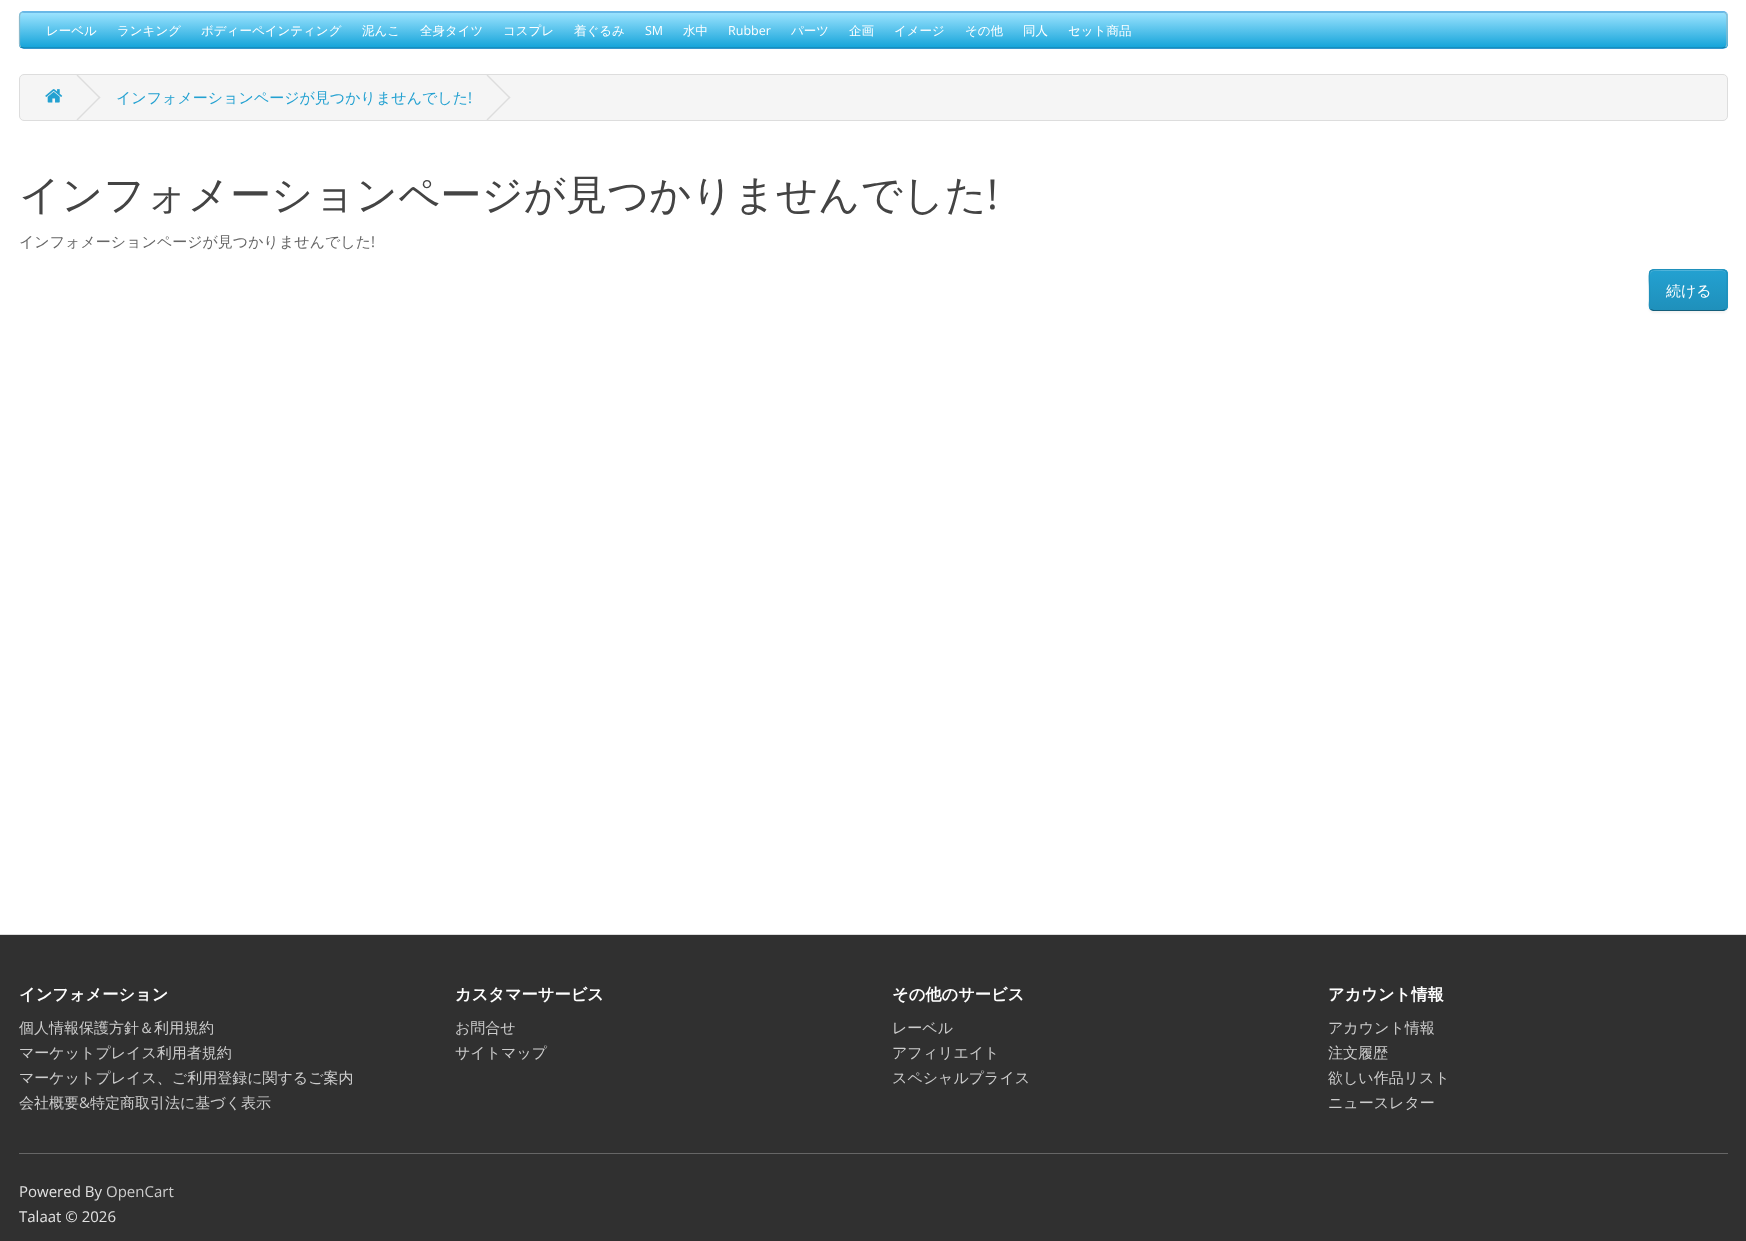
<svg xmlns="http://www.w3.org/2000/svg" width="1746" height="1241">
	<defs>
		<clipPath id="clip1"><rect x="19" y="11" width="1709" height="38" rx="5" /></clipPath>
		<linearGradient id="g1" gradientUnits="userSpaceOnUse" x1="873" y1="12" x2="873" y2="48"><stop offset="0" stop-color="#9EE4FF" /><stop offset="1" stop-color="#13A3D9" /></linearGradient>
		<clipPath id="clip2"><rect x="1649" y="269" width="79" height="42" rx="5" /></clipPath>
		<linearGradient id="g2" gradientUnits="userSpaceOnUse" x1="1688" y1="270" x2="1688" y2="310"><stop offset="0" stop-color="#23A1D1" /><stop offset="1" stop-color="#1F90BB" /></linearGradient>
	</defs>
	<rect width="100%" height="100%" fill="#FFFFFF" />
	<rect x="19" y="11" width="1709" height="38" rx="5" fill="#58AEF0" />
	<g clip-path="url(#clip1)">
		<rect x="19" y="13" width="1709" height="35" fill="url(#g1)" />
	</g>
	<path d="M20.5 13L24 12H1722.5L1725.5 13" fill="none" stroke="#7AC2DD" stroke-width="1.2" />
	<path d="M1725.5 13C1726.5 14 1727 15 1727 16V44C1727 45 1726.5 46 1725.5 47" fill="none" stroke="#8BBACC" stroke-width="1.2" />
	<path d="M1725.5 47L1722.5 48H24L20.5 47" fill="none" stroke="#147FA7" stroke-width="1.2" />
	<path d="M20.5 47C20 46 19.5 45 19.5 44V16.5C19.5 15 20 14 20.5 13" fill="none" stroke="#8BBACC" stroke-width="1.2" />
	<g font-family="WenQuanYi Zen Hei" font-size="12.5" font-weight="500" fill="#FFFFFF">
		<text x="46" y="35">レーベル</text>
		<text x="117" y="35">ランキング</text>
		<text x="201" y="35">ボディーペインティング</text>
		<text x="362" y="35">泥んこ</text>
		<text x="420" y="35">全身タイツ</text>
		<text x="503" y="35">コスプレ</text>
		<text x="574" y="35">着ぐるみ</text>
	</g>
	<text x="645" y="35" font-family="Open Sans" font-size="12.5" fill="#FFFFFF">SM</text>
	<text x="683" y="35" font-family="WenQuanYi Zen Hei" font-size="12.5" font-weight="500" fill="#FFFFFF">水中</text>
	<text x="728" y="35" font-family="Open Sans" font-size="12.5" fill="#FFFFFF">Rubber</text>
	<g font-family="WenQuanYi Zen Hei" font-size="12.5" font-weight="500" fill="#FFFFFF">
		<text x="791" y="35">パーツ</text>
		<text x="849" y="35">企画</text>
		<text x="894" y="35">イメージ</text>
		<text x="965" y="35">その他</text>
		<text x="1023" y="35">同人</text>
		<text x="1068" y="35">セット商品</text>
	</g>
	<rect x="19.5" y="74.5" width="1708" height="46" rx="4.5" fill="#F5F5F5" stroke="#DDDDDD" />
	<image x="45" y="89" width="18" height="14" href="assets/img1.png" />
	<path d="M76.5 75.5L77.5 74.5L100.5 97.5L99.5 98.5Z" fill="#DDDDDD" />
	<path d="M76.5 119.5L99.5 96.5L100.5 97.5L77.5 120.5Z" fill="#DDDDDD" />
	<text x="116" y="103" font-family="WenQuanYi Zen Hei" font-size="15" font-weight="500" fill="#23A1D1">インフォメーションページが見つかりませんでした</text>
	<text x="468" y="103" font-family="Open Sans" font-size="15" fill="#23A1D1">!</text>
	<path d="M486.5 75.5L487.5 74.5L510.5 97.5L509.5 98.5Z" fill="#DDDDDD" />
	<path d="M486.5 119.5L509.5 96.5L510.5 97.5L487.5 120.5Z" fill="#DDDDDD" />
	<text x="19" y="209" font-family="WenQuanYi Zen Hei" font-size="41.25" font-weight="500" fill="#444444">インフォメーションページが見つかりませんでした</text>
	<text x="987" y="209" font-family="Open Sans" font-size="41.25" fill="#444444">!</text>
	<text x="19" y="247" font-family="WenQuanYi Zen Hei" font-size="15" font-weight="500" fill="#666666">インフォメーションページが見つかりませんでした</text>
	<text x="371" y="247" font-family="Open Sans" font-size="15" fill="#666666">!</text>
	<rect x="1649" y="270" width="79" height="43" rx="5" fill="#000000" fill-opacity="0.05" filter="blur(1px)" />
	<rect x="1649" y="269" width="79" height="42" rx="5" fill="#229AC8" />
	<g clip-path="url(#clip2)">
		<rect x="1649" y="270" width="79" height="40" fill="url(#g2)" />
	</g>
	<path d="M1654 271H1722C1725 271 1726 273 1726 275C1726 267 1716 270 1711 270H1665C1660 270 1650 267 1650 275C1650 273 1652 271 1654 271Z" fill="#FFFFFF" fill-opacity="0.2" />
	<path d="M1725.5 309.5L1723 310.5H1653.5L1650.5 309.5" fill="none" stroke="#145E7A" stroke-width="1.2" />
	<path d="M1650.5 309.5C1648.5 307 1649.5 303 1649.5 301V290C1649.5 268.5 1645 269.5 1665 269.5H1711C1731 269.5 1727 268.5 1727 290V301C1727 303 1727.5 307 1725.5 309.5" fill="none" stroke="#1F90BB" stroke-width="1.2" />
	<text x="1666" y="296" font-family="WenQuanYi Zen Hei" font-size="15" font-weight="500" fill="#FFFFFF">続ける</text>
	<rect x="0" y="935" width="1746" height="306" fill="#303030" />
	<rect x="0" y="934" width="1746" height="1" fill="#DDDDDD" />
	<text x="19" y="1000" font-family="WenQuanYi Zen Hei" font-size="16.25" font-weight="700" fill="#FFFFFF">インフォメーション</text>
	<g font-family="WenQuanYi Zen Hei" font-size="15" font-weight="500" fill="#CCCCCC">
		<text x="19" y="1033">個人情報保護方針＆利用規約</text>
		<text x="19" y="1058">マーケットプレイス利用者規約</text>
		<text x="19" y="1083">マーケットプレイス、ご利用登録に関するご案内</text>
		<text x="19" y="1108">会社概要</text>
	</g>
	<text x="79" y="1108" font-family="Open Sans" font-size="15" fill="#CCCCCC">&amp;</text>
	<text x="90" y="1108" font-family="WenQuanYi Zen Hei" font-size="15" font-weight="500" fill="#CCCCCC">特定商取引法に基づく表示</text>
	<text x="455" y="1000" font-family="WenQuanYi Zen Hei" font-size="16.25" font-weight="700" fill="#FFFFFF">カスタマーサービス</text>
	<g font-family="WenQuanYi Zen Hei" font-size="15" font-weight="500" fill="#CCCCCC">
		<text x="455" y="1033">お問合せ</text>
		<text x="455" y="1058">サイトマップ</text>
	</g>
	<text x="892" y="1000" font-family="WenQuanYi Zen Hei" font-size="16.25" font-weight="700" fill="#FFFFFF">その他のサービス</text>
	<g font-family="WenQuanYi Zen Hei" font-size="15" font-weight="500" fill="#CCCCCC">
		<text x="892" y="1033">レーベル</text>
		<text x="892" y="1058">アフィリエイト</text>
		<text x="892" y="1083">スペシャルプライス</text>
	</g>
	<text x="1328" y="1000" font-family="WenQuanYi Zen Hei" font-size="16.25" font-weight="700" fill="#FFFFFF">アカウント情報</text>
	<g font-family="WenQuanYi Zen Hei" font-size="15" font-weight="500" fill="#CCCCCC">
		<text x="1328" y="1033">アカウント情報</text>
		<text x="1328" y="1058">注文履歴</text>
		<text x="1328" y="1083">欲しい作品リスト</text>
		<text x="1328" y="1108">ニュースレター</text>
	</g>
	<rect x="19" y="1153" width="1709" height="1" fill="#666666" />
	<text x="19" y="1197" font-family="Open Sans" font-size="15" fill="#E2E2E2">Powered By</text>
	<text x="106" y="1197" font-family="Open Sans" font-size="15" fill="#CCCCCC">OpenCart</text>
	<text x="19" y="1222" font-family="Open Sans" font-size="15" fill="#E2E2E2">Talaat © 2026</text>
</svg>
